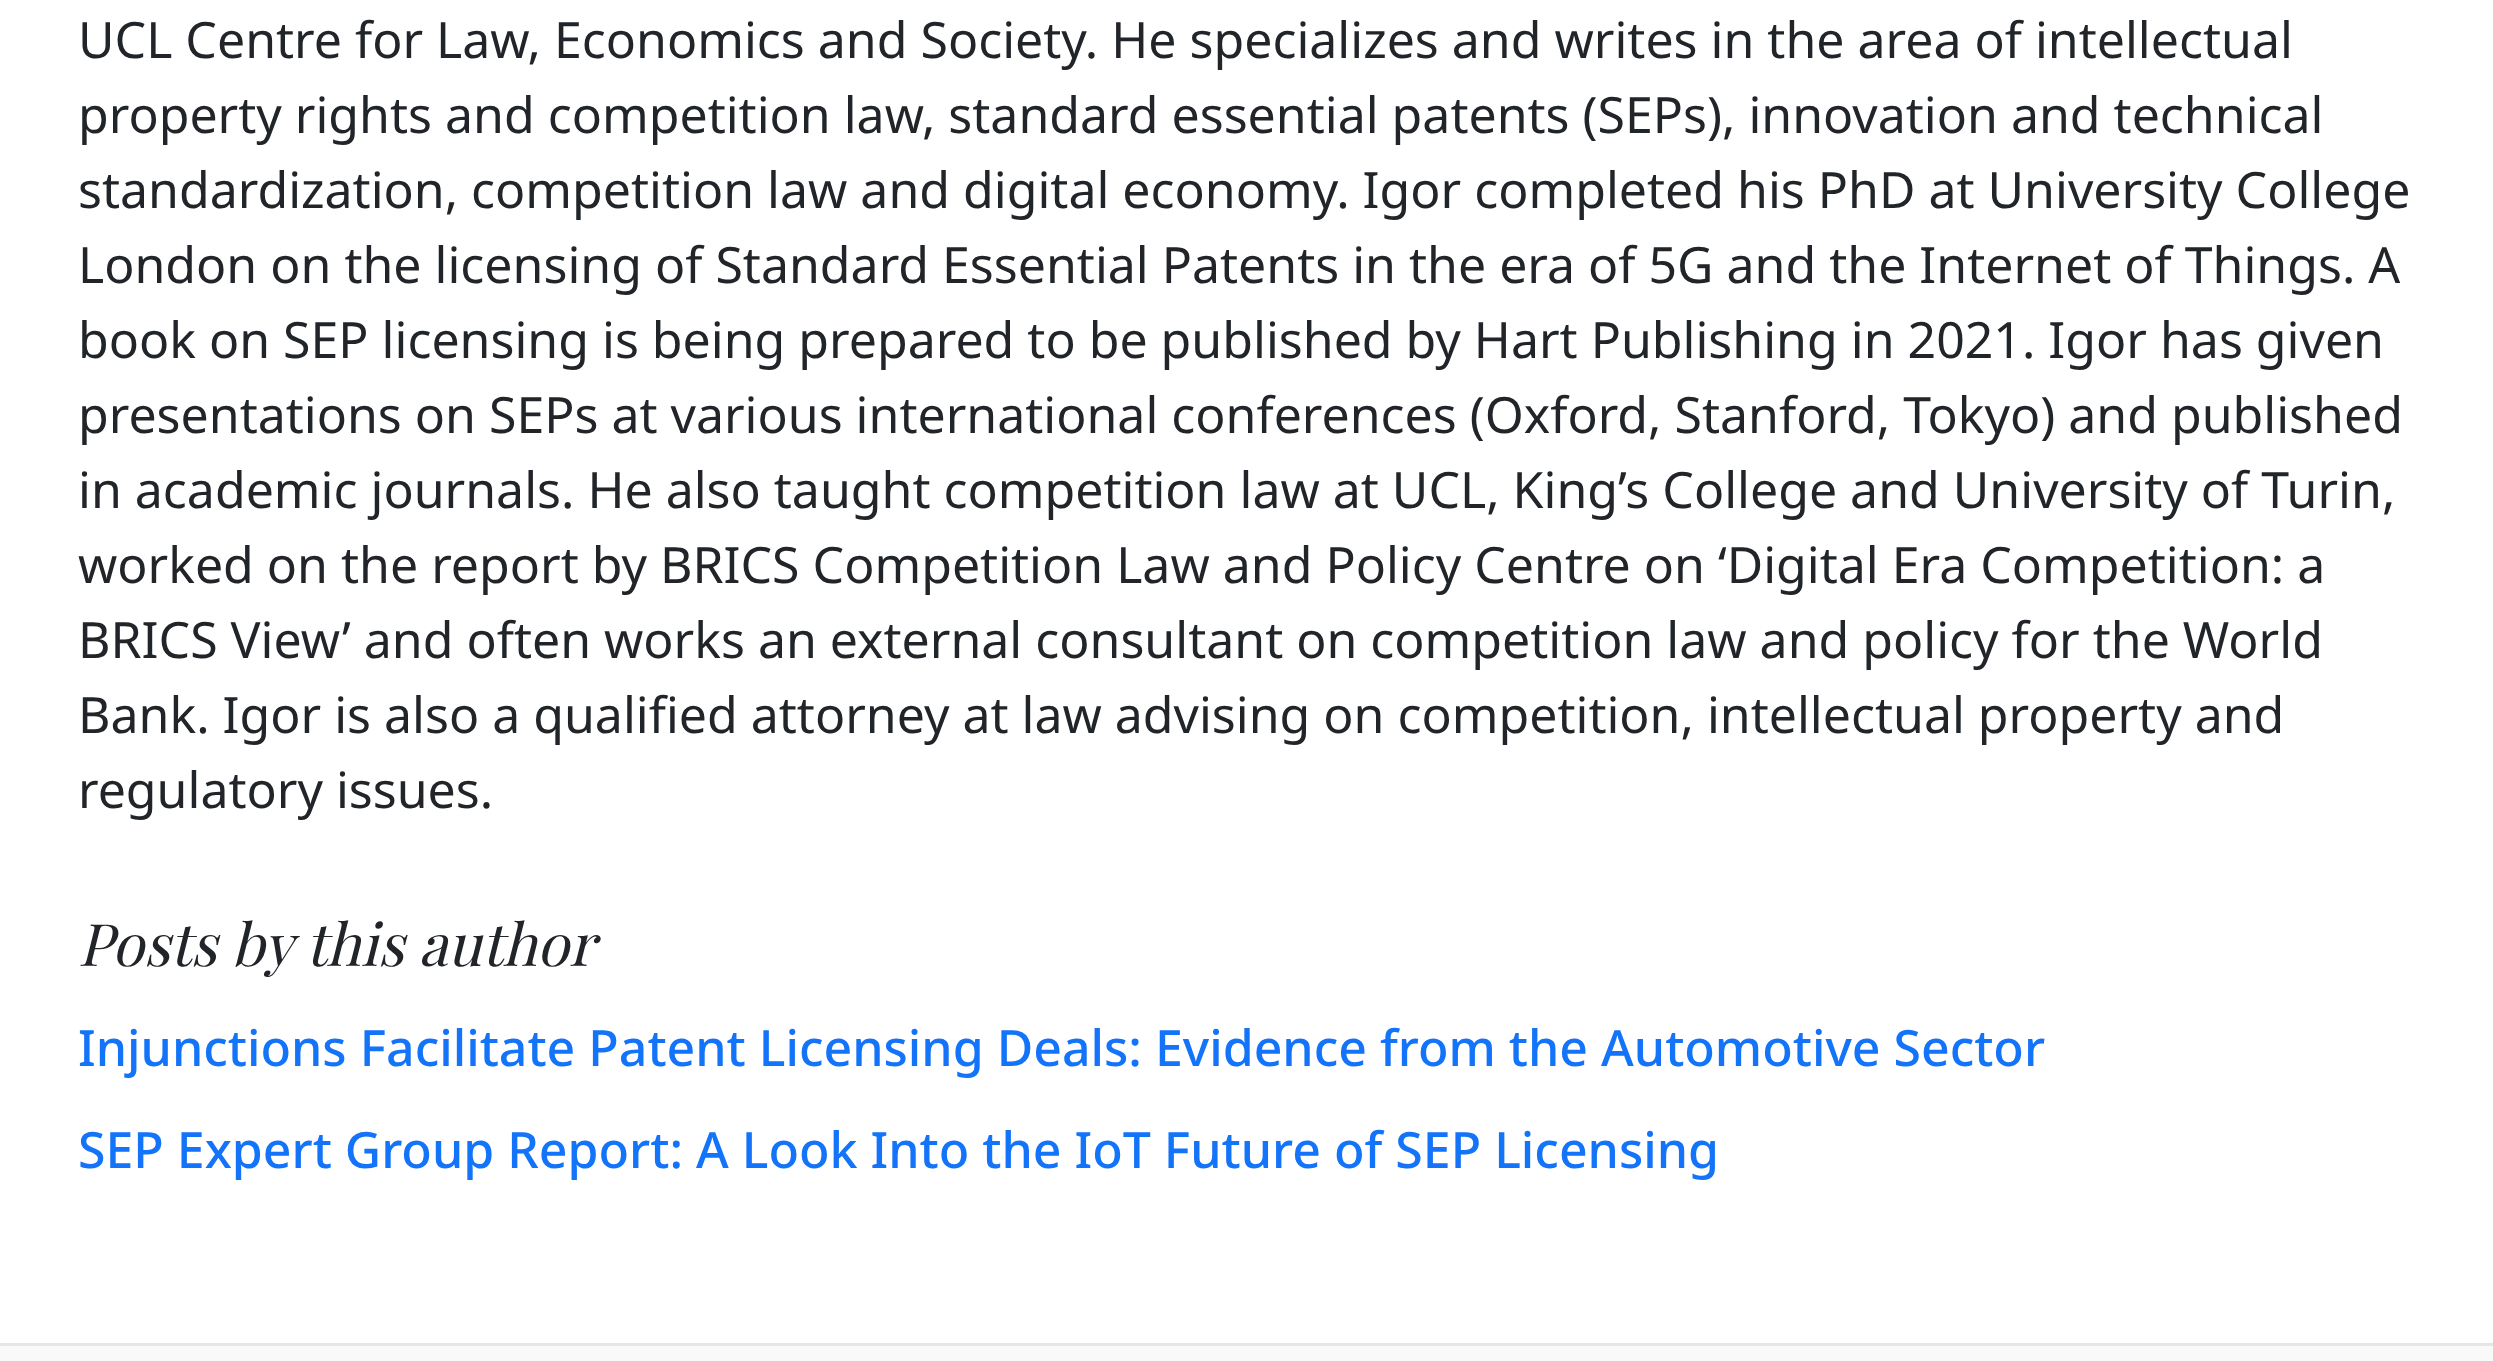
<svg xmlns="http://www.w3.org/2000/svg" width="2493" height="1361">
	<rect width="100%" height="100%" fill="#FFFFFF" />
	<g font-family="Noto Sans" font-size="50" fill="#212529">
		<text x="78" y="58">UCL Centre for Law, Economics and Society. He specializes and writes in the area of intellectual</text>
		<text x="78" y="133">property rights and competition law, standard essential patents (SEPs), innovation and technical</text>
		<text x="78" y="208">standardization, competition law and digital economy. Igor completed his PhD at University College</text>
		<text x="78" y="283">London on the licensing of Standard Essential Patents in the era of 5G and the Internet of Things. A</text>
		<text x="78" y="358">book on SEP licensing is being prepared to be published by Hart Publishing in 2021. Igor has given</text>
		<text x="78" y="433">presentations on SEPs at various international conferences (Oxford, Stanford, Tokyo) and published</text>
		<text x="78" y="508">in academic journals. He also taught competition law at UCL, King’s College and University of Turin,</text>
		<text x="78" y="583">worked on the report by BRICS Competition Law and Policy Centre on ‘Digital Era Competition: a</text>
		<text x="78" y="658">BRICS View’ and often works an external consultant on competition law and policy for the World</text>
		<text x="78" y="733">Bank. Igor is also a qualified attorney at law advising on competition, intellectual property and</text>
		<text x="78" y="808">regulatory issues.</text>
	</g>
	<text x="78" y="966" font-family="Playfair Display" font-size="58.5" font-style="italic" fill="#212529">Posts by this author</text>
	<g font-family="Noto Sans" font-size="50" font-weight="500" fill="#1373F9">
		<text x="78" y="1066">Injunctions Facilitate Patent Licensing Deals: Evidence from the Automotive Sector</text>
		<text x="78" y="1168">SEP Expert Group Report: A Look Into the IoT Future of SEP Licensing</text>
	</g>
	<rect x="0" y="1346" width="2493" height="15" fill="#F9F9F9" />
	<rect x="0" y="1343" width="2493" height="3" fill="#E5E5E5" />
</svg>
